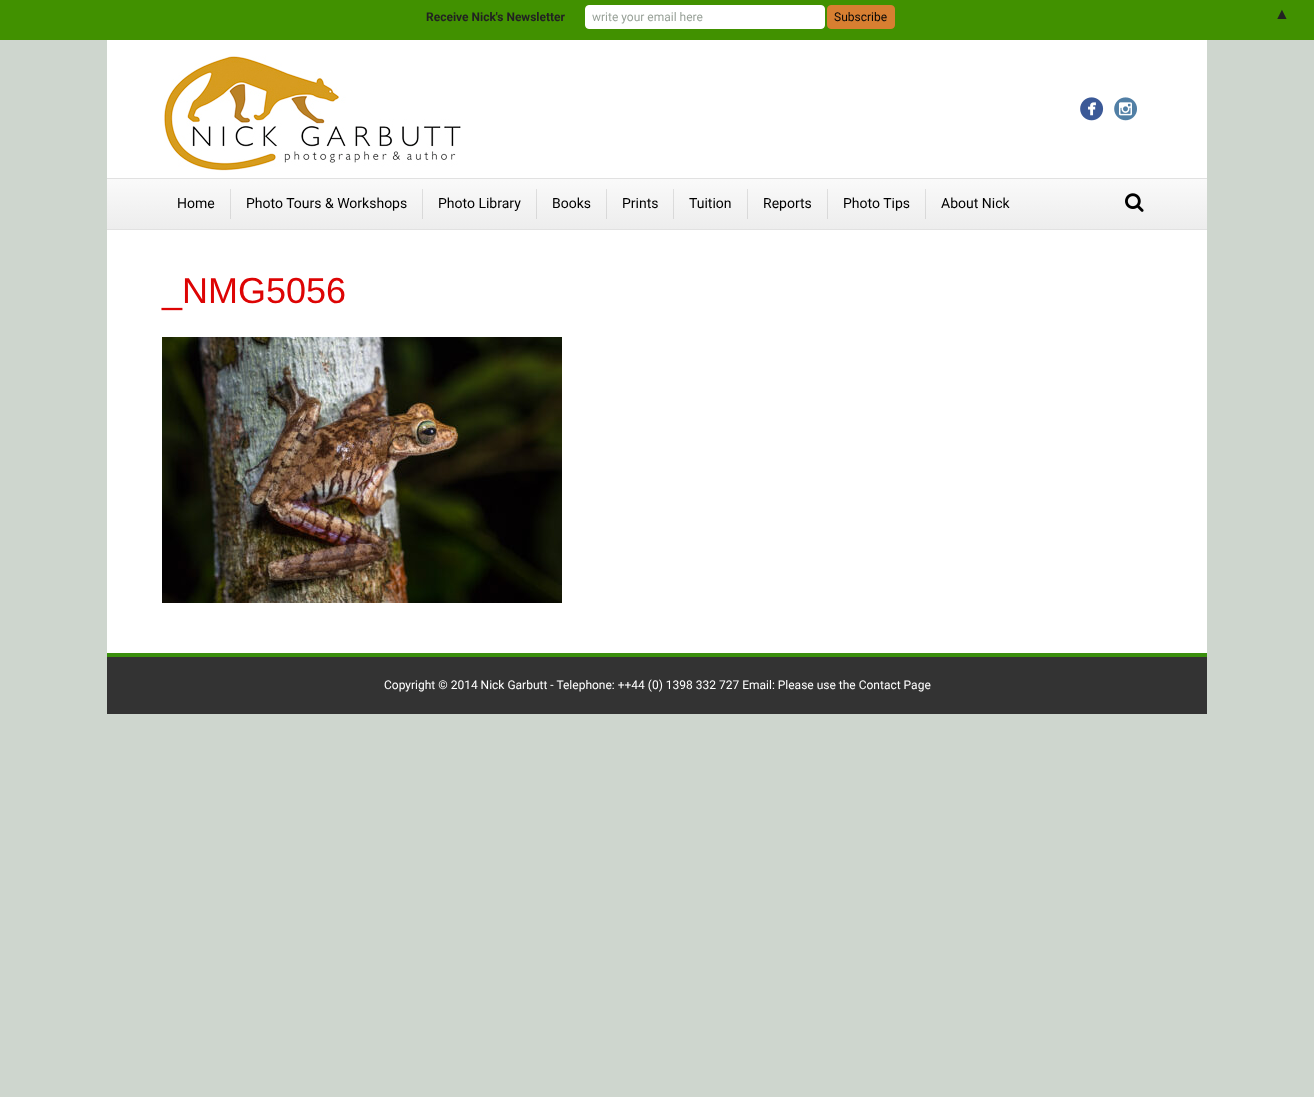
<svg xmlns="http://www.w3.org/2000/svg" width="1314" height="1097">
	<defs>
		<linearGradient id="g1" gradientUnits="userSpaceOnUse" x1="657" y1="179" x2="657" y2="229"><stop offset="0" stop-color="#FAFAFA" /><stop offset="1" stop-color="#EDEDED" /></linearGradient>
		<linearGradient id="g2" gradientUnits="userSpaceOnUse" x1="657" y1="179" x2="657" y2="229"><stop offset="0" stop-color="#E1E1E1" /><stop offset="1" stop-color="#D5D5D5" /></linearGradient>
	</defs>
	<rect width="100%" height="100%" fill="#CED6CE" />
	<rect x="0" y="0" width="1314" height="40" fill="#419100" />
	<text x="426" y="21" font-family="Roboto" font-size="12" font-weight="700" fill="#222222">Receive Nick's Newsletter</text>
	<rect x="585.5" y="5.5" width="239" height="23" rx="3.5" fill="#FFFFFF" stroke="#FFFFFF" />
	<text x="592" y="21" font-family="Roboto" font-size="12" fill="#99A299">write your email here</text>
	<rect x="827.5" y="5.5" width="67" height="23" rx="3.5" fill="#D87F31" stroke="#D87F31" />
	<text x="834" y="21" font-family="Roboto" font-size="12" fill="#070707">Subscribe</text>
	<text x="1274" y="19" font-family="Liberation Sans" font-size="16" fill="#222222">▲</text>
	<rect x="107" y="40" width="1100" height="138" fill="#FFFFFF" />
	<image x="164" y="56" width="297" height="115" href="assets/img1.png" />
	<image x="1080" y="97" width="24" height="24" href="assets/img2.png" />
	<image x="1114" y="97" width="23" height="24" href="assets/img3.png" />
	<rect x="107" y="179" width="1100" height="50" fill="url(#g1)" />
	<rect x="925" y="189" width="1" height="30" fill="url(#g2)" />
	<rect x="827" y="189" width="1" height="30" fill="url(#g2)" />
	<rect x="747" y="189" width="1" height="30" fill="url(#g2)" />
	<rect x="673" y="189" width="1" height="30" fill="url(#g2)" />
	<rect x="606" y="189" width="1" height="30" fill="url(#g2)" />
	<rect x="536" y="189" width="1" height="30" fill="url(#g2)" />
	<rect x="422" y="189" width="1" height="30" fill="url(#g2)" />
	<rect x="230" y="189" width="1" height="30" fill="url(#g2)" />
	<rect x="107" y="178" width="1100" height="1" fill="#E1E1E1" />
	<rect x="107" y="229" width="1100" height="1" fill="#E1E1E1" />
	<g font-family="Roboto" font-size="14" fill="#000000">
		<text x="177" y="208">Home</text>
		<text x="246" y="208">Photo Tours &amp; Workshops</text>
		<text x="438" y="208">Photo Library</text>
		<text x="552" y="208">Books</text>
		<text x="622" y="208">Prints</text>
		<text x="689" y="208">Tuition</text>
		<text x="763" y="208">Reports</text>
		<text x="843" y="208">Photo Tips</text>
		<text x="941" y="208">About Nick</text>
	</g>
	<image x="1125" y="193" width="19" height="19" href="assets/img4.png" />
	<rect x="107" y="230" width="1100" height="423" fill="#FFFFFF" />
	<text x="162" y="303" font-family="Liberation Sans" font-size="36" fill="#DD0404">_NMG5056</text>
	<image x="162" y="337" width="400" height="266" href="assets/img5.png" />
	<rect x="107" y="657" width="1100" height="57" fill="#333333" />
	<rect x="107" y="653" width="1100" height="4" fill="#3B8F0E" />
	<text x="384" y="689" font-family="Roboto" font-size="12" fill="#FFFFFF">Copyright © 2014 Nick Garbutt - Telephone: ++44 (0) 1398 332 727 Email: Please use the Contact Page</text>
</svg>
